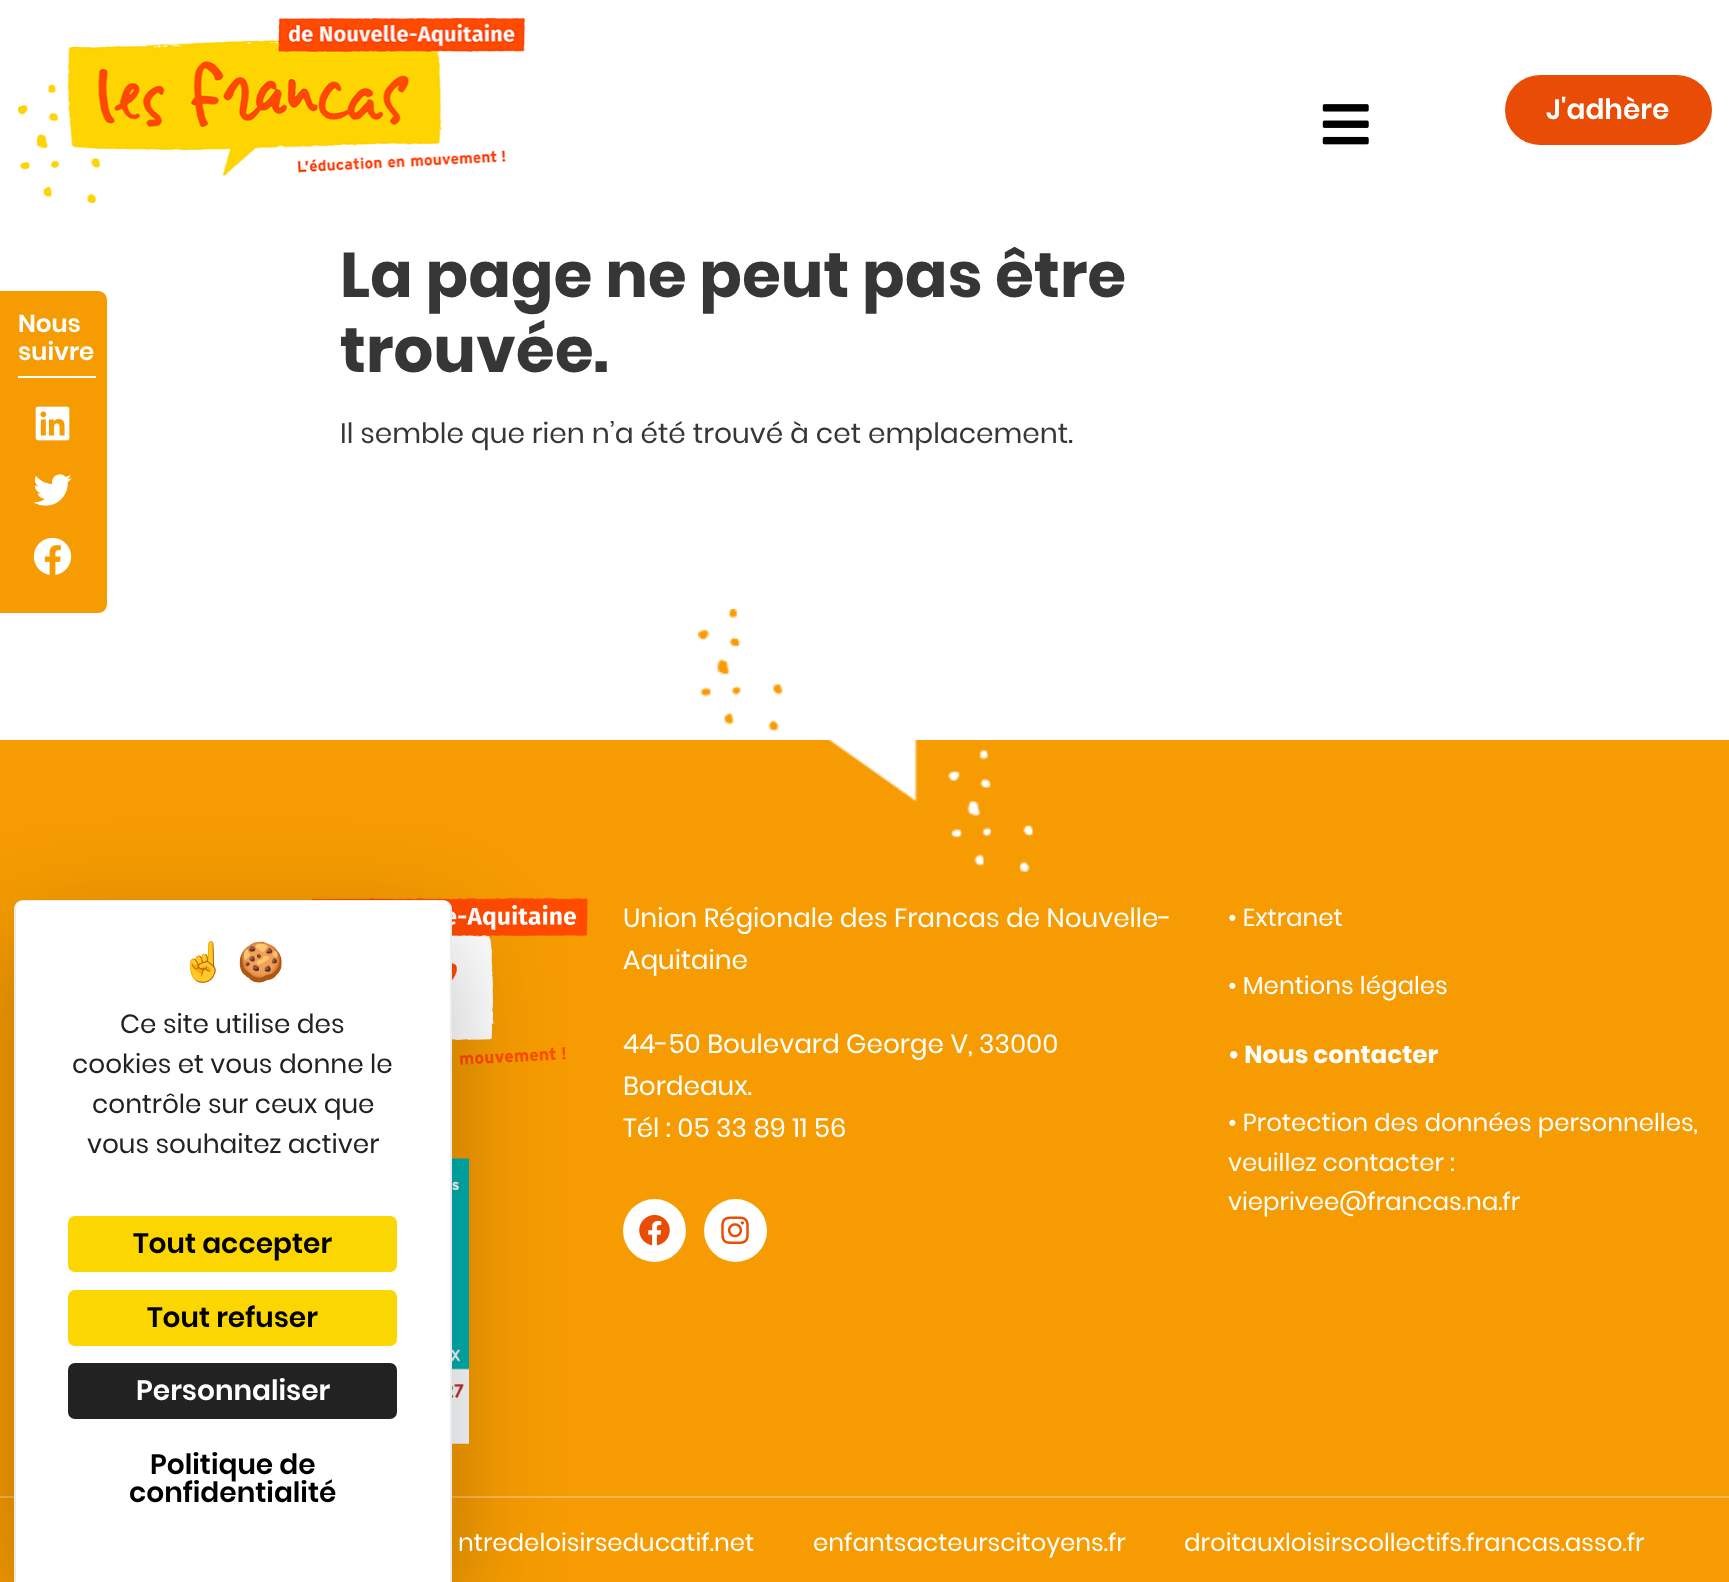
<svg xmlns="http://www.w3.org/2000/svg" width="1729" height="1582">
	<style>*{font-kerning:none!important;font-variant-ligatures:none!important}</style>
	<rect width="100%" height="100%" fill="#FFFFFF" />
	<image x="18" y="18" width="508" height="185" href="assets/img1.png" />
	<image x="1322" y="104" width="47" height="41" href="assets/img2.png" />
	<rect x="1505" y="75" width="207" height="70" rx="35" fill="#E84C05" />
	<text x="1546" y="119" font-family="Poppins" font-size="28" font-weight="600" fill="#FFFFFF">J'adhère</text>
	<path d="M0 291H98C103 291 107 295 107 300V604C107 609 103 613 98 613H0Z" fill="#F69C02" />
	<image x="35" y="406" width="35" height="35" href="assets/img3.png" />
	<image x="33" y="474" width="39" height="32" href="assets/img4.png" />
	<image x="33" y="537" width="39" height="38" href="assets/img5.png" />
	<rect x="18" y="376" width="78" height="2" fill="#FFFFFF" />
	<g font-family="Poppins" font-size="24.5" font-weight="600" fill="#FFFFFF">
		<text x="18" y="332">Nous</text>
		<text x="18" y="360">suivre</text>
	</g>
	<g font-family="Poppins" font-size="63" font-weight="700" fill="#363636">
		<text x="340" y="297">La page ne peut pas être</text>
		<text x="340" y="372">trouvée.</text>
	</g>
	<text x="340" y="443" font-family="Poppins" font-size="28" fill="#363636">Il semble que rien n’a été trouvé à cet emplacement.</text>
	<rect x="0" y="740" width="1729" height="756" fill="#F69C02" />
	<image x="311" y="897" width="277" height="168" href="assets/img7.png" />
	<image x="452" y="1158" width="17" height="286" href="assets/img8.png" />
	<rect x="0" y="1498" width="1729" height="84" fill="#F69C02" />
	<rect x="0" y="1496" width="1729" height="2" fill="#F9BA4E" />
	<rect x="14" y="935" width="438" height="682" rx="9" fill="#000000" fill-opacity="0.25" filter="blur(52.5px)" />
	<path d="M23 900H443C448 900 452 904 452 909V1582H14V909C14 904 18 900 23 900Z" fill="#FFFFFF" />
	<path d="M23 900H443C448 900 452 903 452 908V1582H14V908C14 903 18 900 23 900ZM23 901H443C447 901 450 904 450 908V1582H16V908C16 904 19 901 23 901Z" fill="#000000" fill-opacity="0.08" fill-rule="evenodd" />
	<g font-family="Noto Color Emoji" font-size="38" fill="#222222">
		<text x="180" y="975">☝️</text>
		<text x="237" y="975">🍪</text>
	</g>
	<g font-family="Poppins" font-size="26.25" fill="#222222">
		<text x="120" y="1033">Ce site utilise des</text>
		<text x="72" y="1073">cookies et vous donne le</text>
		<text x="92" y="1113">contrôle sur ceux que</text>
		<text x="87" y="1153">vous souhaitez activer</text>
	</g>
	<rect x="68" y="1216" width="329" height="56" rx="7" fill="#FBD600" />
	<text x="133" y="1253" font-family="Poppins" font-size="28" font-weight="600" fill="#000000">Tout accepter</text>
	<rect x="68" y="1290" width="329" height="56" rx="7" fill="#FBD600" />
	<text x="147" y="1327" font-family="Poppins" font-size="28" font-weight="600" fill="#000000">Tout refuser</text>
	<rect x="68" y="1363" width="329" height="56" rx="7" fill="#222222" />
	<text x="136" y="1400" font-family="Poppins" font-size="28" font-weight="600" fill="#FFFFFF">Personnaliser</text>
	<g font-family="Poppins" font-size="28" font-weight="600" fill="#000000">
		<text x="150" y="1474">Politique de</text>
		<text x="129" y="1502">confidentialité</text>
	</g>
	<image x="698" y="609" width="335" height="263" href="assets/img6.png" />
	<g font-family="Poppins" font-size="26.25" fill="#FFFFFF">
		<text x="623" y="927">Union Régionale des Francas de Nouvelle-</text>
		<text x="623" y="969">Aquitaine</text>
		<text x="623" y="1053">44-50 Boulevard George V, 33000</text>
		<text x="623" y="1095">Bordeaux.</text>
		<text x="623" y="1137">Tél : 05 33 89 11 56</text>
	</g>
	<circle cx="654.5" cy="1230.5" r="31.5" fill="#FFFFFF" />
	<image x="639" y="1215" width="31" height="31" href="assets/img9.png" />
	<circle cx="735.5" cy="1230.5" r="31.5" fill="#FFFFFF" />
	<image x="721" y="1216" width="28" height="28" href="assets/img10.png" />
	<g font-family="Poppins" font-size="24.5" fill="#FFFFFF">
		<text x="1228" y="926">• Extranet</text>
		<text x="1228" y="994">• Mentions légales</text>
	</g>
	<text x="1228" y="1063" font-family="Poppins" font-size="24.5" font-weight="700" fill="#FFFFFF">• Nous contacter</text>
	<g font-family="Poppins" font-size="24.5" fill="#FFFFFF">
		<text x="1228" y="1131">• Protection des données personnelles,</text>
		<text x="1228" y="1171">veuillez contacter :</text>
		<text x="1228" y="1210">vieprivee@francas.na.fr</text>
		<text x="458" y="1551">ntredeloisirseducatif.net</text>
		<text x="813" y="1551">enfantsacteurscitoyens.fr</text>
		<text x="1184" y="1551">droitauxloisirscollectifs.francas.asso.fr</text>
	</g>
</svg>
